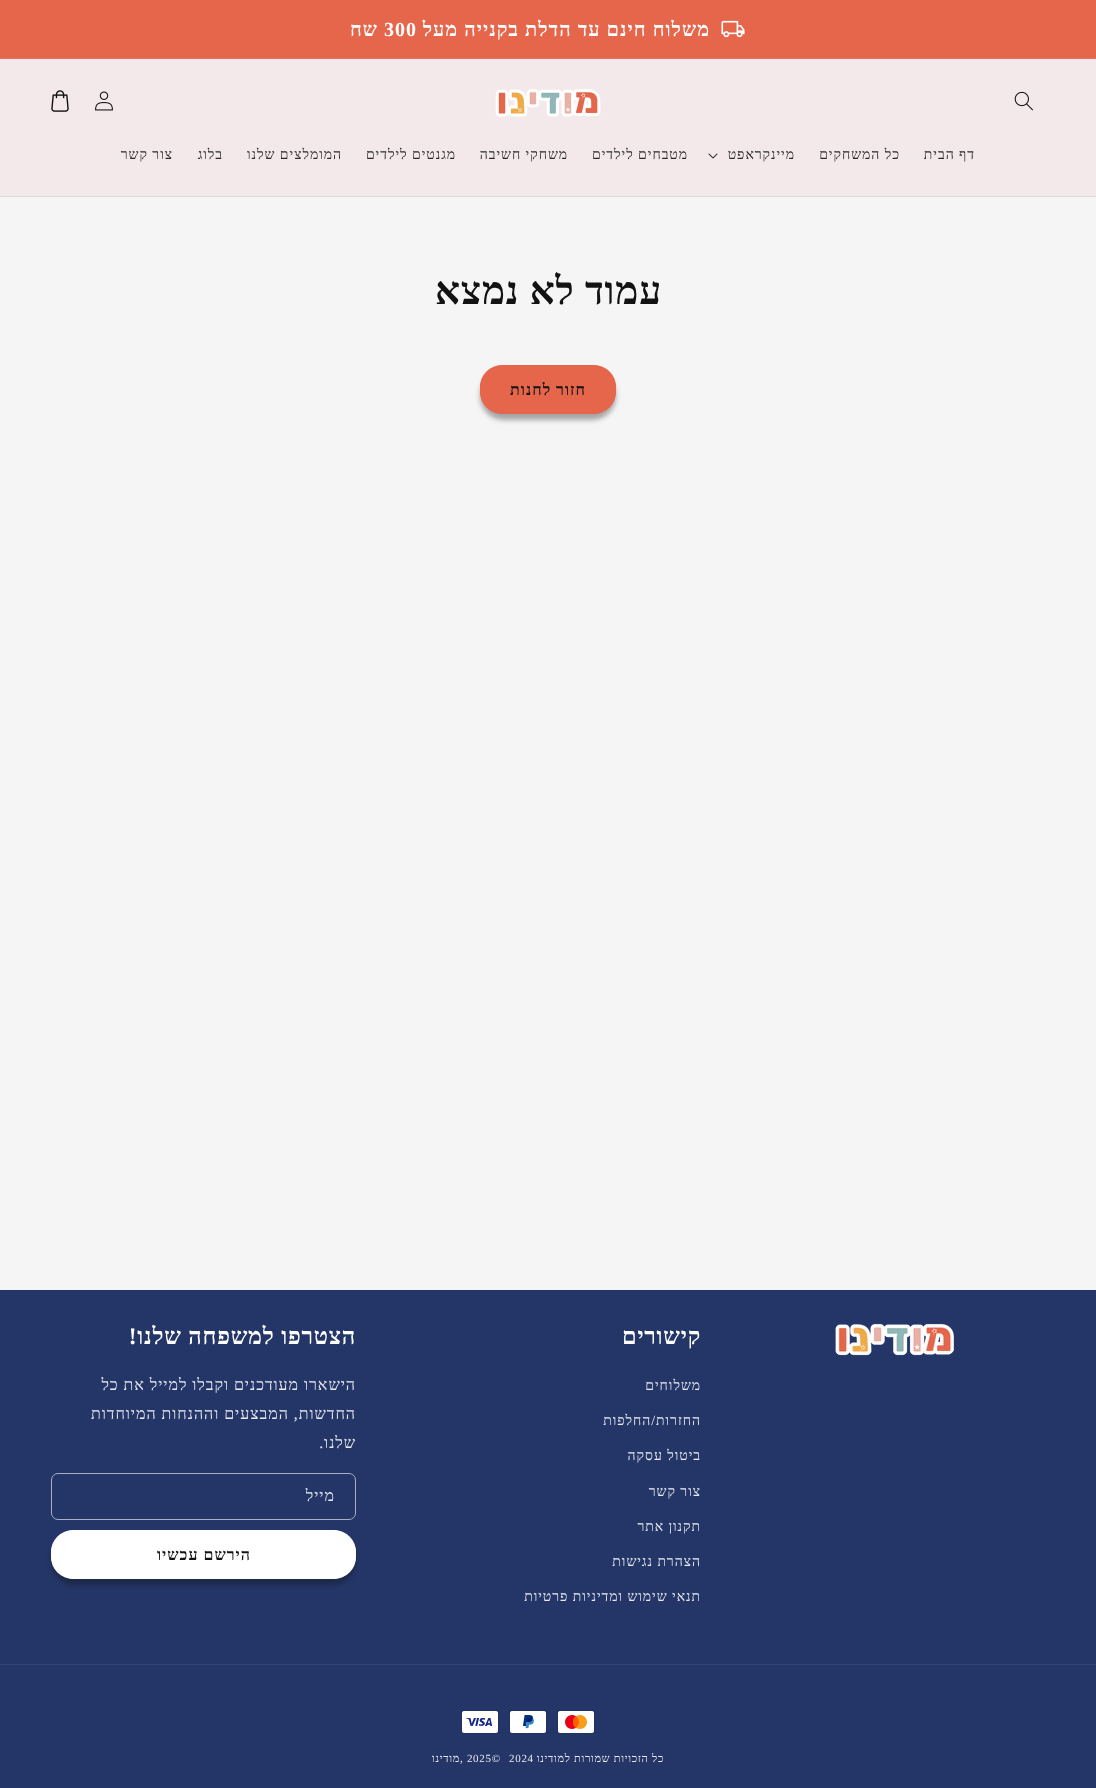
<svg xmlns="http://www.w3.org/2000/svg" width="1096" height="1788">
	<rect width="100%" height="100%" fill="#F5F5F5" />
	<rect x="0" y="0" width="1096" height="58" fill="#E6664B" />
	<rect x="0" y="58" width="1096" height="1" fill="#E87259" />
	<image x="721" y="20" width="24" height="18" href="assets/img1.png" />
	<text x="710" y="36" font-family="Liberation Serif" font-size="20" font-weight="700" letter-spacing="1" direction="rtl" fill="#FFFFFF">משלוח חינם עד הדלת בקנייה מעל</text>
	<text x="384" y="36" font-family="Liberation Serif" font-size="20" font-weight="700" letter-spacing="1" fill="#FFFFFF">300</text>
	<text x="378" y="36" font-family="Liberation Serif" font-size="20" font-weight="700" letter-spacing="1" direction="rtl" fill="#FFFFFF">שח</text>
	<rect x="0" y="59" width="1096" height="137" fill="#F3E9EA" />
	<rect x="0" y="196" width="1096" height="1" fill="#E1D8D9" />
	<image x="1014" y="91" width="19" height="20" href="assets/img2.png" />
	<image x="495" y="89" width="106" height="28" href="assets/img3.png" />
	<image x="95" y="91" width="18" height="20" href="assets/img4.png" />
	<image x="51" y="90" width="18" height="22" href="assets/img5.png" />
	<g font-family="Liberation Serif" font-size="14" letter-spacing="0.95" direction="rtl" fill="#292828">
		<text x="975" y="159">דף הבית</text>
		<text x="900" y="159">כל המשחקים</text>
		<text x="795" y="159">מיינקראפט</text>
	</g>
	<image x="708" y="153" width="10" height="6" href="assets/img6.png" />
	<g font-family="Liberation Serif" font-size="14" letter-spacing="0.95" direction="rtl" fill="#292828">
		<text x="688" y="159">מטבחים לילדים</text>
		<text x="568" y="159">משחקי חשיבה</text>
		<text x="456" y="159">מגנטים לילדים</text>
		<text x="342" y="159">המומלצים שלנו</text>
		<text x="223" y="159">בלוג</text>
		<text x="173" y="159">צור קשר</text>
	</g>
	<text x="662" y="304" font-family="Liberation Serif" font-size="39" font-weight="700" letter-spacing="0.75" direction="rtl" fill="#121212">עמוד לא נמצא</text>
	<rect x="480" y="371" width="136" height="49" rx="24" fill="#121212" fill-opacity="0.35" filter="blur(2.5px)" />
	<rect x="481" y="366" width="134" height="47" rx="23" fill="none" stroke="#E6664B" stroke-width="2" />
	<rect x="480" y="365" width="136" height="49" rx="22" fill="#E6664B" />
	<text x="586" y="395" font-family="Liberation Serif" font-size="16" font-weight="700" letter-spacing="1" direction="rtl" fill="#121212">חזור לחנות</text>
	<rect x="0" y="1290" width="1096" height="498" fill="#243668" />
	<image x="835" y="1323" width="119" height="33" href="assets/img7.png" />
	<text x="701" y="1344" font-family="Liberation Serif" font-size="23.5" font-weight="700" letter-spacing="0.75" direction="rtl" fill="#FFFFFF">קישורים</text>
	<g font-family="Liberation Serif" font-size="14" letter-spacing="0.95" direction="rtl" fill="#E9EBF0">
		<text x="701" y="1390">משלוחים</text>
		<text x="701" y="1425">החזרות/החלפות</text>
		<text x="701" y="1460">ביטול עסקה</text>
		<text x="701" y="1496">צור קשר</text>
		<text x="701" y="1531">תקנון אתר</text>
		<text x="701" y="1566">הצהרת נגישות</text>
		<text x="701" y="1601">תנאי שימוש ומדיניות פרטיות</text>
	</g>
	<text x="356" y="1344" font-family="Liberation Serif" font-size="23.5" font-weight="700" letter-spacing="0.75" direction="rtl" fill="#FFFFFF">הצטרפו למשפחה שלנו!</text>
	<g font-family="Liberation Serif" font-size="16" letter-spacing="0.95" direction="rtl" fill="#E9EBF0">
		<text x="356" y="1390">הישארו מעודכנים וקבלו למייל את כל</text>
		<text x="356" y="1419">החדשות, המבצעים וההנחות המיוחדות</text>
		<text x="356" y="1448">שלנו.</text>
	</g>
	<rect x="51.5" y="1473.5" width="304" height="46" rx="6.5" fill="none" stroke="#A7AFC3" />
	<text x="335" y="1501" font-family="Liberation Serif" font-size="16" letter-spacing="1" direction="rtl" fill="#E9EBF0">מייל</text>
	<rect x="51" y="1536" width="305" height="49" rx="24" fill="#121212" fill-opacity="0.35" filter="blur(2.5px)" />
	<rect x="52" y="1531" width="303" height="47" rx="23" fill="none" stroke="#FFFFFF" stroke-width="2" />
	<rect x="51" y="1530" width="305" height="49" rx="22" fill="#FFFFFF" />
	<text x="251" y="1560" font-family="Liberation Serif" font-size="16" font-weight="700" letter-spacing="1" direction="rtl" fill="#121212">הירשם עכשיו</text>
	<rect x="0" y="1664" width="1096" height="1" fill="#364674" />
	<image x="557" y="1710" width="38" height="24" href="assets/img8.png" />
	<image x="509" y="1710" width="38" height="24" href="assets/img9.png" />
	<image x="461" y="1710" width="38" height="24" href="assets/img10.png" />
	<text x="664" y="1762" font-family="Liberation Serif" font-size="11" letter-spacing="0.7" direction="rtl" fill="#E9EBF0">כל הזכויות שמורות למודינו</text>
	<g font-family="Liberation Serif" font-size="11" letter-spacing="0.7" fill="#E9EBF0">
		<text x="509" y="1762">2024</text>
		<text x="460" y="1762">, 2025©</text>
	</g>
	<text x="460" y="1762" font-family="Liberation Serif" font-size="11" letter-spacing="0.7" direction="rtl" fill="#E9EBF0">מודינו</text>
</svg>
